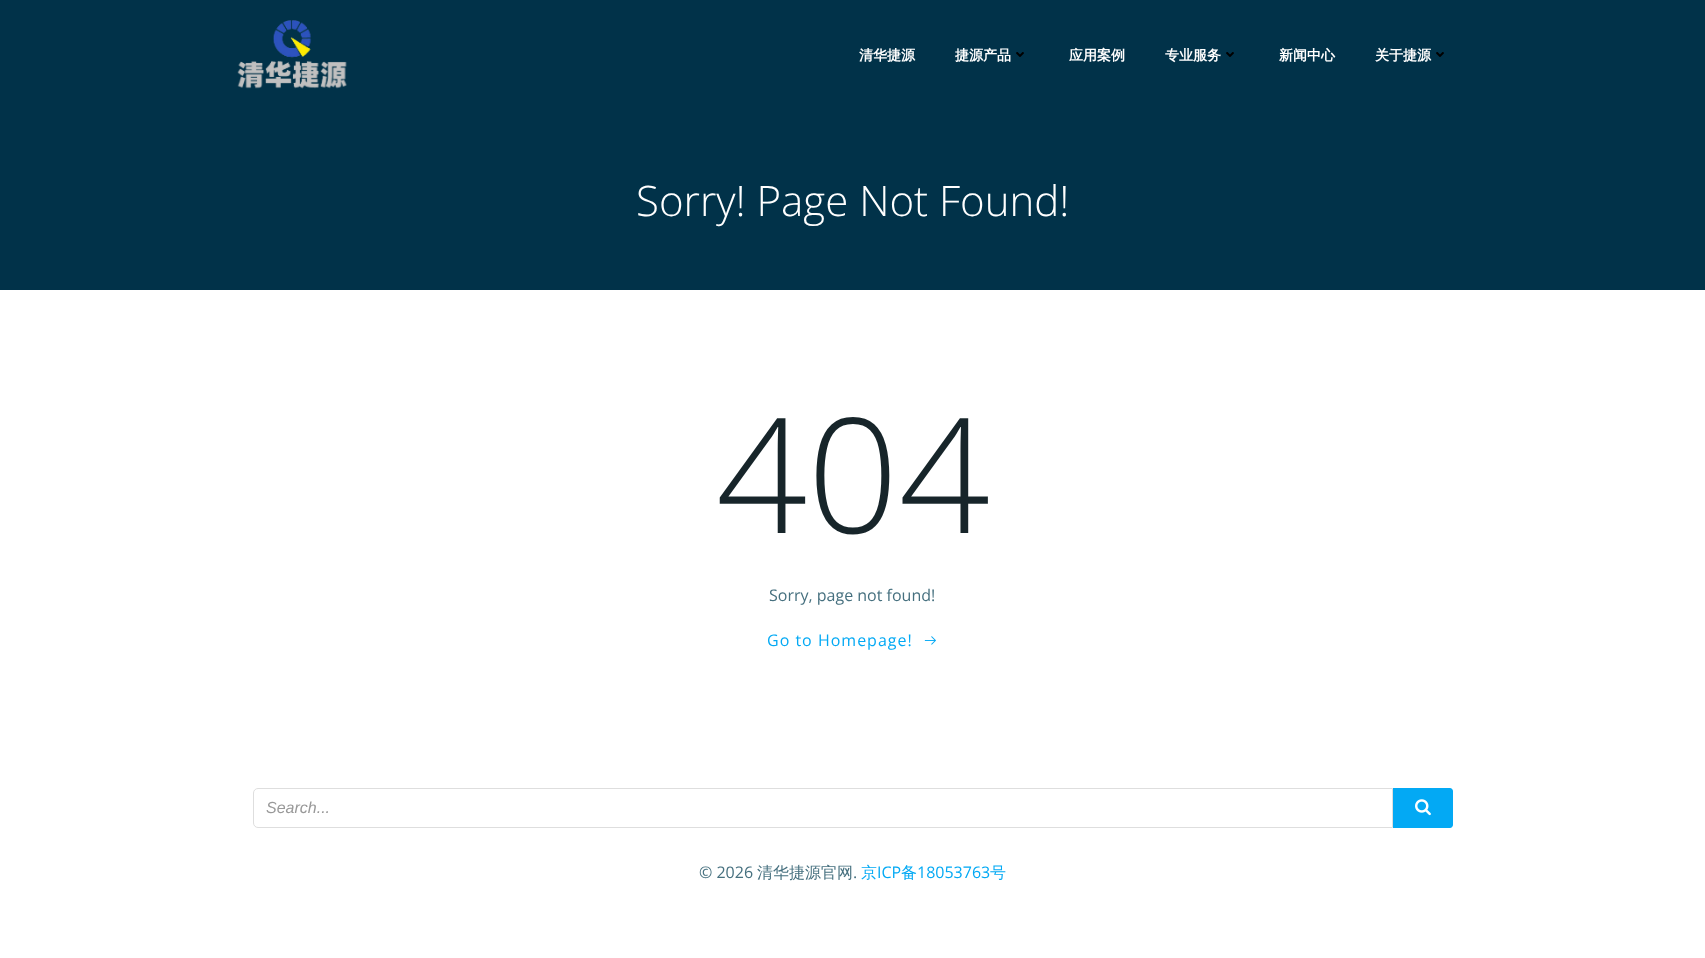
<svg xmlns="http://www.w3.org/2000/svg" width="1705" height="958">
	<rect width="100%" height="100%" fill="#FFFFFF" />
	<rect x="0" y="0" width="1705" height="290" fill="#013249" />
	<image x="237" y="20" width="110" height="69" href="assets/img1.png" />
	<g font-family="WenQuanYi Zen Hei" font-size="14" font-weight="700" fill="#FFFFFF">
		<text x="859" y="60">清华捷源</text>
		<text x="955" y="60">捷源产品</text>
	</g>
	<image x="1016" y="52" width="8" height="5" href="assets/img2.png" />
	<g font-family="WenQuanYi Zen Hei" font-size="14" font-weight="700" fill="#FFFFFF">
		<text x="1069" y="60">应用案例</text>
		<text x="1165" y="60">专业服务</text>
	</g>
	<image x="1226" y="52" width="8" height="5" href="assets/img2.png" />
	<g font-family="WenQuanYi Zen Hei" font-size="14" font-weight="700" fill="#FFFFFF">
		<text x="1279" y="60">新闻中心</text>
		<text x="1375" y="60">关于捷源</text>
	</g>
	<image x="1436" y="52" width="8" height="5" href="assets/img2.png" />
	<text x="636" y="216" font-family="Open Sans" font-size="42" font-weight="300" fill="#FFFFFF">Sorry! Page Not Found!</text>
	<text x="716" y="533" font-family="Open Sans" font-size="160" font-weight="300" fill="#17252A">404</text>
	<text x="769" y="601" font-family="Open Sans" font-size="16" fill="#46707F">Sorry, page not found!</text>
	<text x="767" y="646" font-family="Open Sans" font-size="16" letter-spacing="1" fill="#03A9F4">Go to Homepage!</text>
	<image x="924" y="636" width="12" height="9" href="assets/img3.png" />
	<path d="M258 788.5H1392.5V827.5H258C255.5 827.5 253.5 825.5 253.5 823V793C253.5 790.5 255.5 788.5 258 788.5Z" fill="none" stroke="#DEDEDE" />
	<text x="266" y="813" font-family="Liberation Sans" font-size="16" font-style="italic" fill="#999999">Search...</text>
	<path d="M1393 788H1450C1451.5 788 1453 789.5 1453 791V825C1453 826.5 1451.5 828 1450 828H1393Z" fill="#03A9F4" />
	<image x="1415" y="799" width="16" height="17" href="assets/img4.png" />
	<text x="699" y="878" font-family="Open Sans" font-size="16" fill="#46707F">© 2026</text>
	<text x="757" y="878" font-family="WenQuanYi Zen Hei" font-size="16" font-weight="500" fill="#46707F">清华捷源官网</text>
	<text x="853" y="878" font-family="Open Sans" font-size="16" fill="#46707F">.</text>
	<text x="861" y="878" font-family="WenQuanYi Zen Hei" font-size="16" font-weight="500" fill="#03A9F4">京</text>
	<text x="877" y="878" font-family="Open Sans" font-size="16" fill="#03A9F4">ICP</text>
	<text x="901" y="878" font-family="WenQuanYi Zen Hei" font-size="16" font-weight="500" fill="#03A9F4">备</text>
	<text x="917" y="878" font-family="Open Sans" font-size="16" fill="#03A9F4">18053763</text>
	<text x="990" y="878" font-family="WenQuanYi Zen Hei" font-size="16" font-weight="500" fill="#03A9F4">号</text>
</svg>
